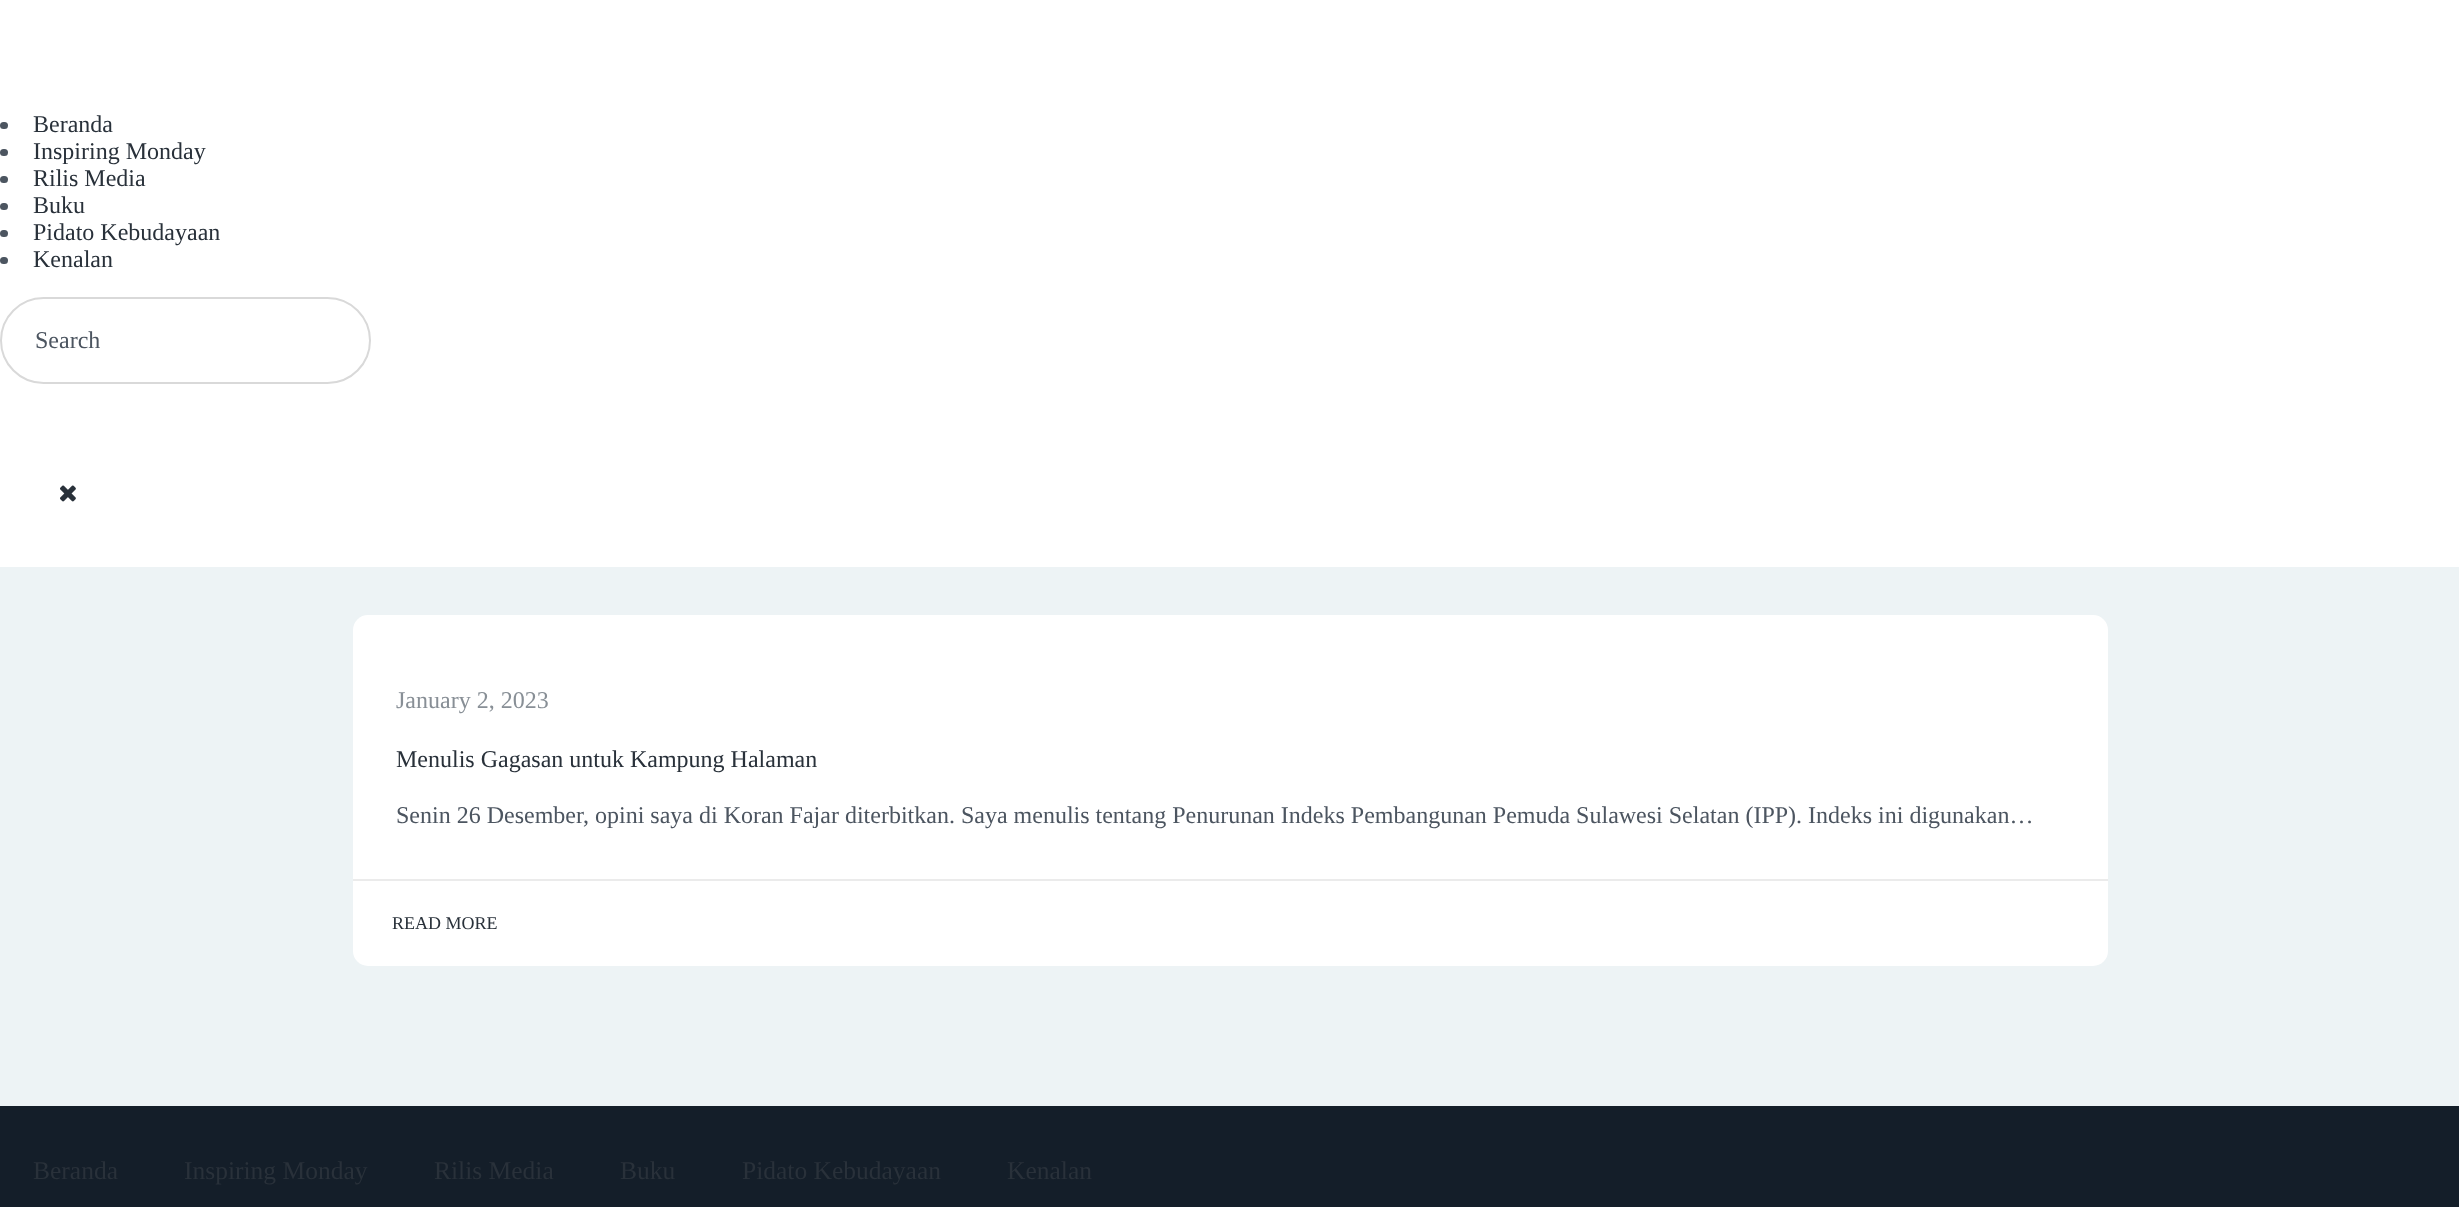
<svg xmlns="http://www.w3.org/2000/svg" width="2459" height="1207">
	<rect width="100%" height="100%" fill="#EDF3F5" />
	<rect x="0" y="0" width="2459" height="567" fill="#FFFFFF" />
	<rect x="0" y="122" width="8" height="7" rx="3.5" fill="#4C5560" />
	<text x="33" y="132" font-family="Liberation Serif" font-size="24" fill="#29313A">Beranda</text>
	<rect x="0" y="149" width="8" height="7" rx="3.5" fill="#4C5560" />
	<text x="33" y="159" font-family="Liberation Serif" font-size="24" fill="#29313A">Inspiring Monday</text>
	<rect x="0" y="176" width="8" height="7" rx="3.5" fill="#4C5560" />
	<text x="33" y="186" font-family="Liberation Serif" font-size="24" fill="#29313A">Rilis Media</text>
	<rect x="0" y="203" width="8" height="7" rx="3.5" fill="#4C5560" />
	<text x="33" y="213" font-family="Liberation Serif" font-size="24" fill="#29313A">Buku</text>
	<rect x="0" y="230" width="8" height="7" rx="3.5" fill="#4C5560" />
	<text x="33" y="240" font-family="Liberation Serif" font-size="24" fill="#29313A">Pidato Kebudayaan</text>
	<rect x="0" y="257" width="8" height="7" rx="3.5" fill="#4C5560" />
	<text x="33" y="267" font-family="Liberation Serif" font-size="24" fill="#29313A">Kenalan</text>
	<rect x="1" y="298" width="369" height="85" rx="42.5" fill="none" stroke="#D9D9D9" stroke-width="2" />
	<text x="35" y="348" font-family="Liberation Serif" font-size="24" fill="#4C5560">Search</text>
	<image x="60" y="485" width="16" height="17" href="assets/img1.png" />
	<rect x="353" y="615" width="1755" height="351" rx="15" fill="#FFFFFF" />
	<text x="396" y="708" font-family="Liberation Serif" font-size="24" fill="#888F96">January 2, 2023</text>
	<text x="396" y="767" font-family="Liberation Serif" font-size="24" fill="#29313A">Menulis Gagasan untuk Kampung Halaman</text>
	<text x="396" y="823" font-family="Liberation Serif" font-size="24" fill="#4C5560">Senin 26 Desember, opini saya di Koran Fajar diterbitkan. Saya menulis tentang Penurunan Indeks Pembangunan Pemuda Sulawesi Selatan (IPP). Indeks ini digunakan…</text>
	<rect x="353" y="879" width="1755" height="2" fill="#EBEBEB" />
	<text x="392" y="929" font-family="Liberation Serif" font-size="18" fill="#29313A">READ MORE</text>
	<rect x="0" y="1106" width="2459" height="101" fill="#141E29" />
	<g font-family="Liberation Serif" font-size="25.5" fill="#29313A">
		<text x="33" y="1179">Beranda</text>
		<text x="184" y="1179">Inspiring Monday</text>
		<text x="434" y="1179">Rilis Media</text>
		<text x="620" y="1179">Buku</text>
		<text x="742" y="1179">Pidato Kebudayaan</text>
		<text x="1007" y="1179">Kenalan</text>
	</g>
</svg>
